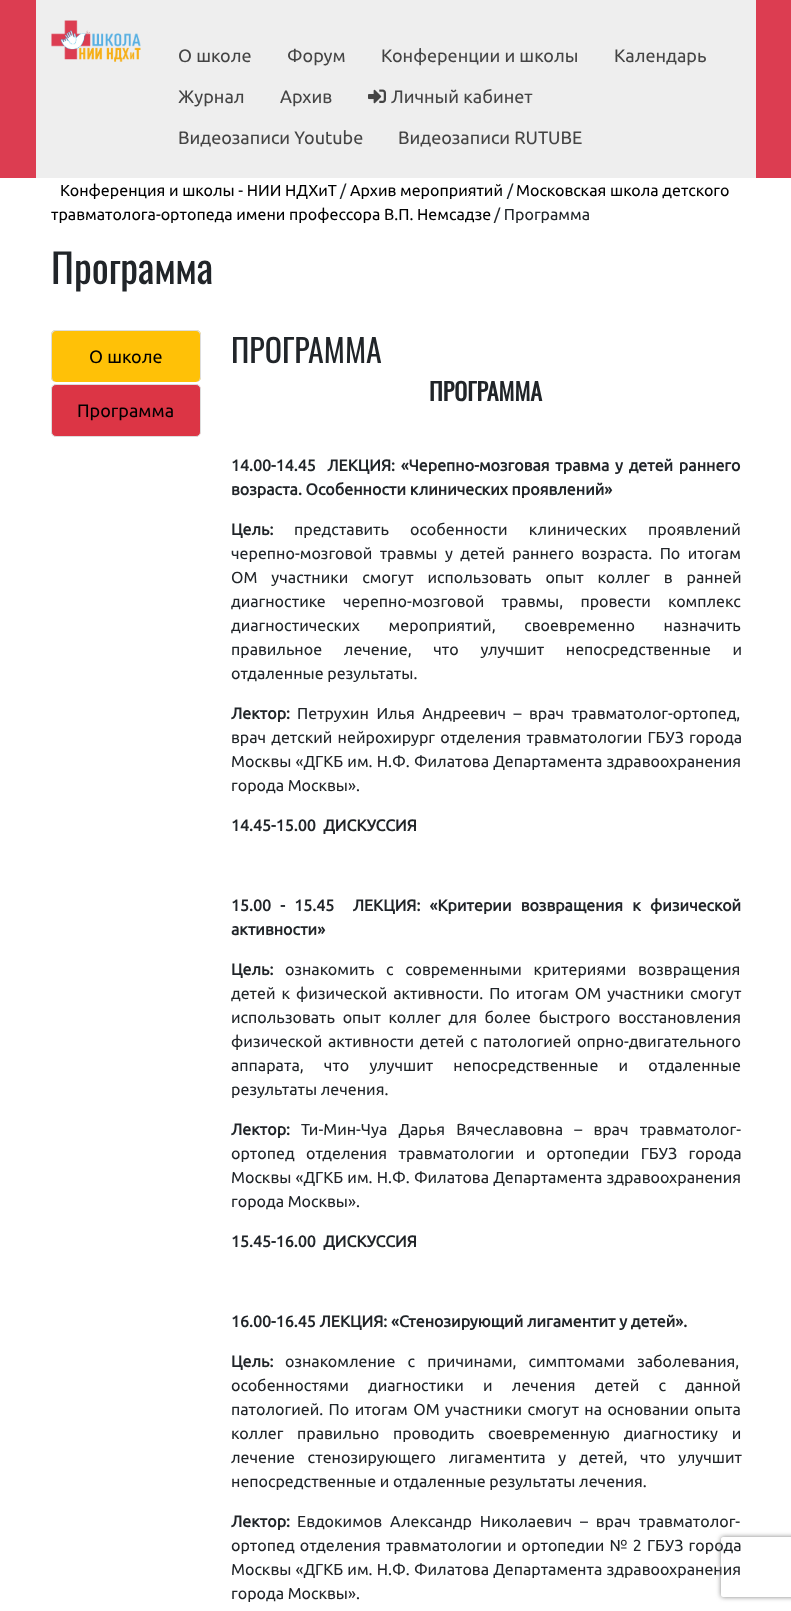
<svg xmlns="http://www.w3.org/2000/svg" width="791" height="1611">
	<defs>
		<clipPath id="clip1"><path d="M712 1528H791V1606H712ZM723 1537H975C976 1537 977 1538 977 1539V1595C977 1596 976 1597 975 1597H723C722 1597 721 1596 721 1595V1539C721 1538 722 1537 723 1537Z" clip-rule="evenodd" /></clipPath>
	</defs>
	<rect width="100%" height="100%" fill="#FFFFFF" />
	<rect x="0" y="0" width="791" height="178" fill="#DC3D51" />
	<rect x="36" y="0" width="720" height="178" fill="#EEEEEE" />
	<image x="51" y="20" width="90" height="42" href="assets/img1.png" />
	<g font-family="Ubuntu" font-size="18" fill="#444444">
		<text x="178" y="62">О школе</text>
		<text x="287" y="62">Форум</text>
		<text x="381" y="62">Конференции и школы</text>
		<text x="614" y="62">Календарь</text>
		<text x="178" y="103">Журнал</text>
		<text x="280" y="103">Архив</text>
	</g>
	<image x="368" y="89" width="18" height="15" href="assets/img2.png" />
	<g font-family="Ubuntu" font-size="18" fill="#444444">
		<text x="391" y="103">Личный кабинет</text>
		<text x="178" y="144">Видеозаписи Youtube</text>
		<text x="398" y="144">Видеозаписи RUTUBE</text>
	</g>
	<text x="60" y="196" font-family="Ubuntu" font-size="16" fill="#000000">Конференция и школы - НИИ НДХиТ</text>
	<text x="340" y="196" font-family="Ubuntu" font-size="16" fill="#212529">/</text>
	<text x="350" y="196" font-family="Ubuntu" font-size="16" fill="#000000">Архив мероприятий</text>
	<text x="507" y="196" font-family="Ubuntu" font-size="16" fill="#212529">/</text>
	<g font-family="Ubuntu" font-size="16" fill="#000000">
		<text x="516" y="196">Московская школа детского</text>
		<text x="51" y="220">травматолога-ортопеда имени профессора В.П. Немсадзе</text>
	</g>
	<text x="494" y="220" font-family="Ubuntu" font-size="16" fill="#212529">/ Программа</text>
	<text x="51" y="284" font-family="Oswald" font-size="40" fill="#212529">Программа</text>
	<rect x="51" y="330" width="150" height="52" rx="5" fill="#FFC107" />
	<path d="M56 330H196C199 330 201 332 201 335V377C201 380 199 382 196 382H56C53 382 51 380 51 377V335C51 332 53 330 56 330ZM56 331H196C198 331 200 333 200 335V377C200 380 198 382 196 382H56C54 382 52 380 52 377V335C52 333 54 331 56 331Z" fill="#DDDDDD" fill-rule="evenodd" />
	<text x="89" y="363" font-family="Ubuntu" font-size="18" fill="#000000">О школе</text>
	<rect x="51.5" y="384.5" width="149" height="52" rx="4.5" fill="#DC3545" stroke="#DDDDDD" />
	<text x="77" y="417" font-family="Ubuntu" font-size="18" fill="#000000">Программа</text>
	<text x="231" y="363" font-family="Oswald" font-size="32" fill="#212529">ПРОГРАММА</text>
	<text x="429" y="401" font-family="Oswald" font-size="24" font-weight="700" fill="#212529">ПРОГРАММА</text>
	<g font-family="Ubuntu" font-size="16" font-weight="700" fill="#212529">
		<text x="231" y="471" word-spacing="2" xml:space="preserve">14.00-14.45  ЛЕКЦИЯ: «Черепно-мозговая травма у детей раннего</text>
		<text x="231" y="495">возраста. Особенности клинических проявлений»</text>
		<text x="231" y="535">Цель:</text>
	</g>
	<g font-family="Ubuntu" font-size="16" fill="#212529">
		<text x="294" y="535" word-spacing="17.5">представить особенности клинических проявлений</text>
		<text x="231" y="559" word-spacing="3.75">черепно-мозговой травмы у детей раннего возраста. По итогам</text>
		<text x="231" y="583" word-spacing="10.25">ОМ участники смогут использовать опыт коллег в ранней</text>
		<text x="231" y="607" word-spacing="13.5">диагностике черепно-мозговой травмы, провести комплекс</text>
		<text x="231" y="631" word-spacing="25">диагностических мероприятий, своевременно назначить</text>
		<text x="231" y="655" word-spacing="18">правильное лечение, что улучшит непосредственные и</text>
		<text x="231" y="679">отдаленные результаты.</text>
	</g>
	<text x="231" y="719" font-family="Ubuntu" font-size="16" font-weight="700" fill="#212529">Лектор:</text>
	<g font-family="Ubuntu" font-size="16" fill="#212529">
		<text x="297" y="719" word-spacing="3.75">Петрухин Илья Андреевич – врач травматолог-ортопед,</text>
		<text x="231" y="743" word-spacing="1.5">врач детский нейрохирург отделения травматологии ГБУЗ города</text>
		<text x="231" y="767" word-spacing="0.5">Москвы «ДГКБ им. Н.Ф. Филатова Департамента здравоохранения</text>
		<text x="231" y="791">города Москвы».</text>
	</g>
	<g font-family="Ubuntu" font-size="16" font-weight="700" fill="#212529">
		<text x="231" y="831" xml:space="preserve">14.45-15.00  ДИСКУССИЯ</text>
		<text x="231" y="911" word-spacing="5.5" xml:space="preserve">15.00 - 15.45  ЛЕКЦИЯ: «Критерии возвращения к физической</text>
		<text x="231" y="935">активности»</text>
		<text x="231" y="975">Цель:</text>
	</g>
	<g font-family="Ubuntu" font-size="16" fill="#212529">
		<text x="285" y="975" word-spacing="8">ознакомить с современными критериями возвращения</text>
		<text x="231" y="999" word-spacing="2.25">детей к физической активности. По итогам ОМ участники смогут</text>
		<text x="231" y="1023" word-spacing="4">использовать опыт коллег для более быстрого восстановления</text>
		<text x="231" y="1047" word-spacing="2">физической активности детей с патологией опрно-двигательного</text>
		<text x="231" y="1071" word-spacing="16.5">аппарата, что улучшит непосредственные и отдаленные</text>
		<text x="231" y="1095">результаты лечения.</text>
	</g>
	<text x="231" y="1135" font-family="Ubuntu" font-size="16" font-weight="700" fill="#212529">Лектор:</text>
	<g font-family="Ubuntu" font-size="16" fill="#212529">
		<text x="301" y="1135" word-spacing="7.5">Ти-Мин-Чуа Дарья Вячеславовна – врач травматолог-</text>
		<text x="231" y="1159" word-spacing="7.75">ортопед отделения травматологии и ортопедии ГБУЗ города</text>
		<text x="231" y="1183" word-spacing="0.5">Москвы «ДГКБ им. Н.Ф. Филатова Департамента здравоохранения</text>
		<text x="231" y="1207">города Москвы».</text>
	</g>
	<g font-family="Ubuntu" font-size="16" font-weight="700" fill="#212529">
		<text x="231" y="1247" xml:space="preserve">15.45-16.00  ДИСКУССИЯ</text>
		<text x="231" y="1327">16.00-16.45 ЛЕКЦИЯ: «Стенозирующий лигаментит у детей».</text>
		<text x="231" y="1367">Цель:</text>
	</g>
	<g font-family="Ubuntu" font-size="16" fill="#212529">
		<text x="285" y="1367" word-spacing="8.5">ознакомление с причинами, симптомами заболевания,</text>
		<text x="231" y="1391" word-spacing="15.5">особенностями диагностики и лечения детей с данной</text>
		<text x="231" y="1415" word-spacing="1.75">патологией. По итогам ОМ участники смогут на основании опыта</text>
		<text x="231" y="1439" word-spacing="10">коллег правильно проводить своевременную диагностику и</text>
		<text x="231" y="1463" word-spacing="9">лечение стенозирующего лигаментита у детей, что улучшит</text>
		<text x="231" y="1487">непосредственные и отдаленные результаты лечения.</text>
	</g>
	<text x="231" y="1527" font-family="Ubuntu" font-size="16" font-weight="700" fill="#212529">Лектор:</text>
	<g font-family="Ubuntu" font-size="16" fill="#212529">
		<text x="297" y="1527" word-spacing="4.25">Евдокимов Александр Николаевич – врач травматолог-</text>
		<text x="231" y="1551" word-spacing="1.5">ортопед отделения травматологии и ортопедии № 2 ГБУЗ города</text>
		<text x="231" y="1575" word-spacing="0.5">Москвы «ДГКБ им. Н.Ф. Филатова Департамента здравоохранения</text>
		<text x="231" y="1599">города Москвы».</text>
	</g>
	<g clip-path="url(#clip1)">
		<rect x="721" y="1537" width="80" height="60" rx="2" fill="#808080" filter="blur(2.5px)" />
	</g>
</svg>
